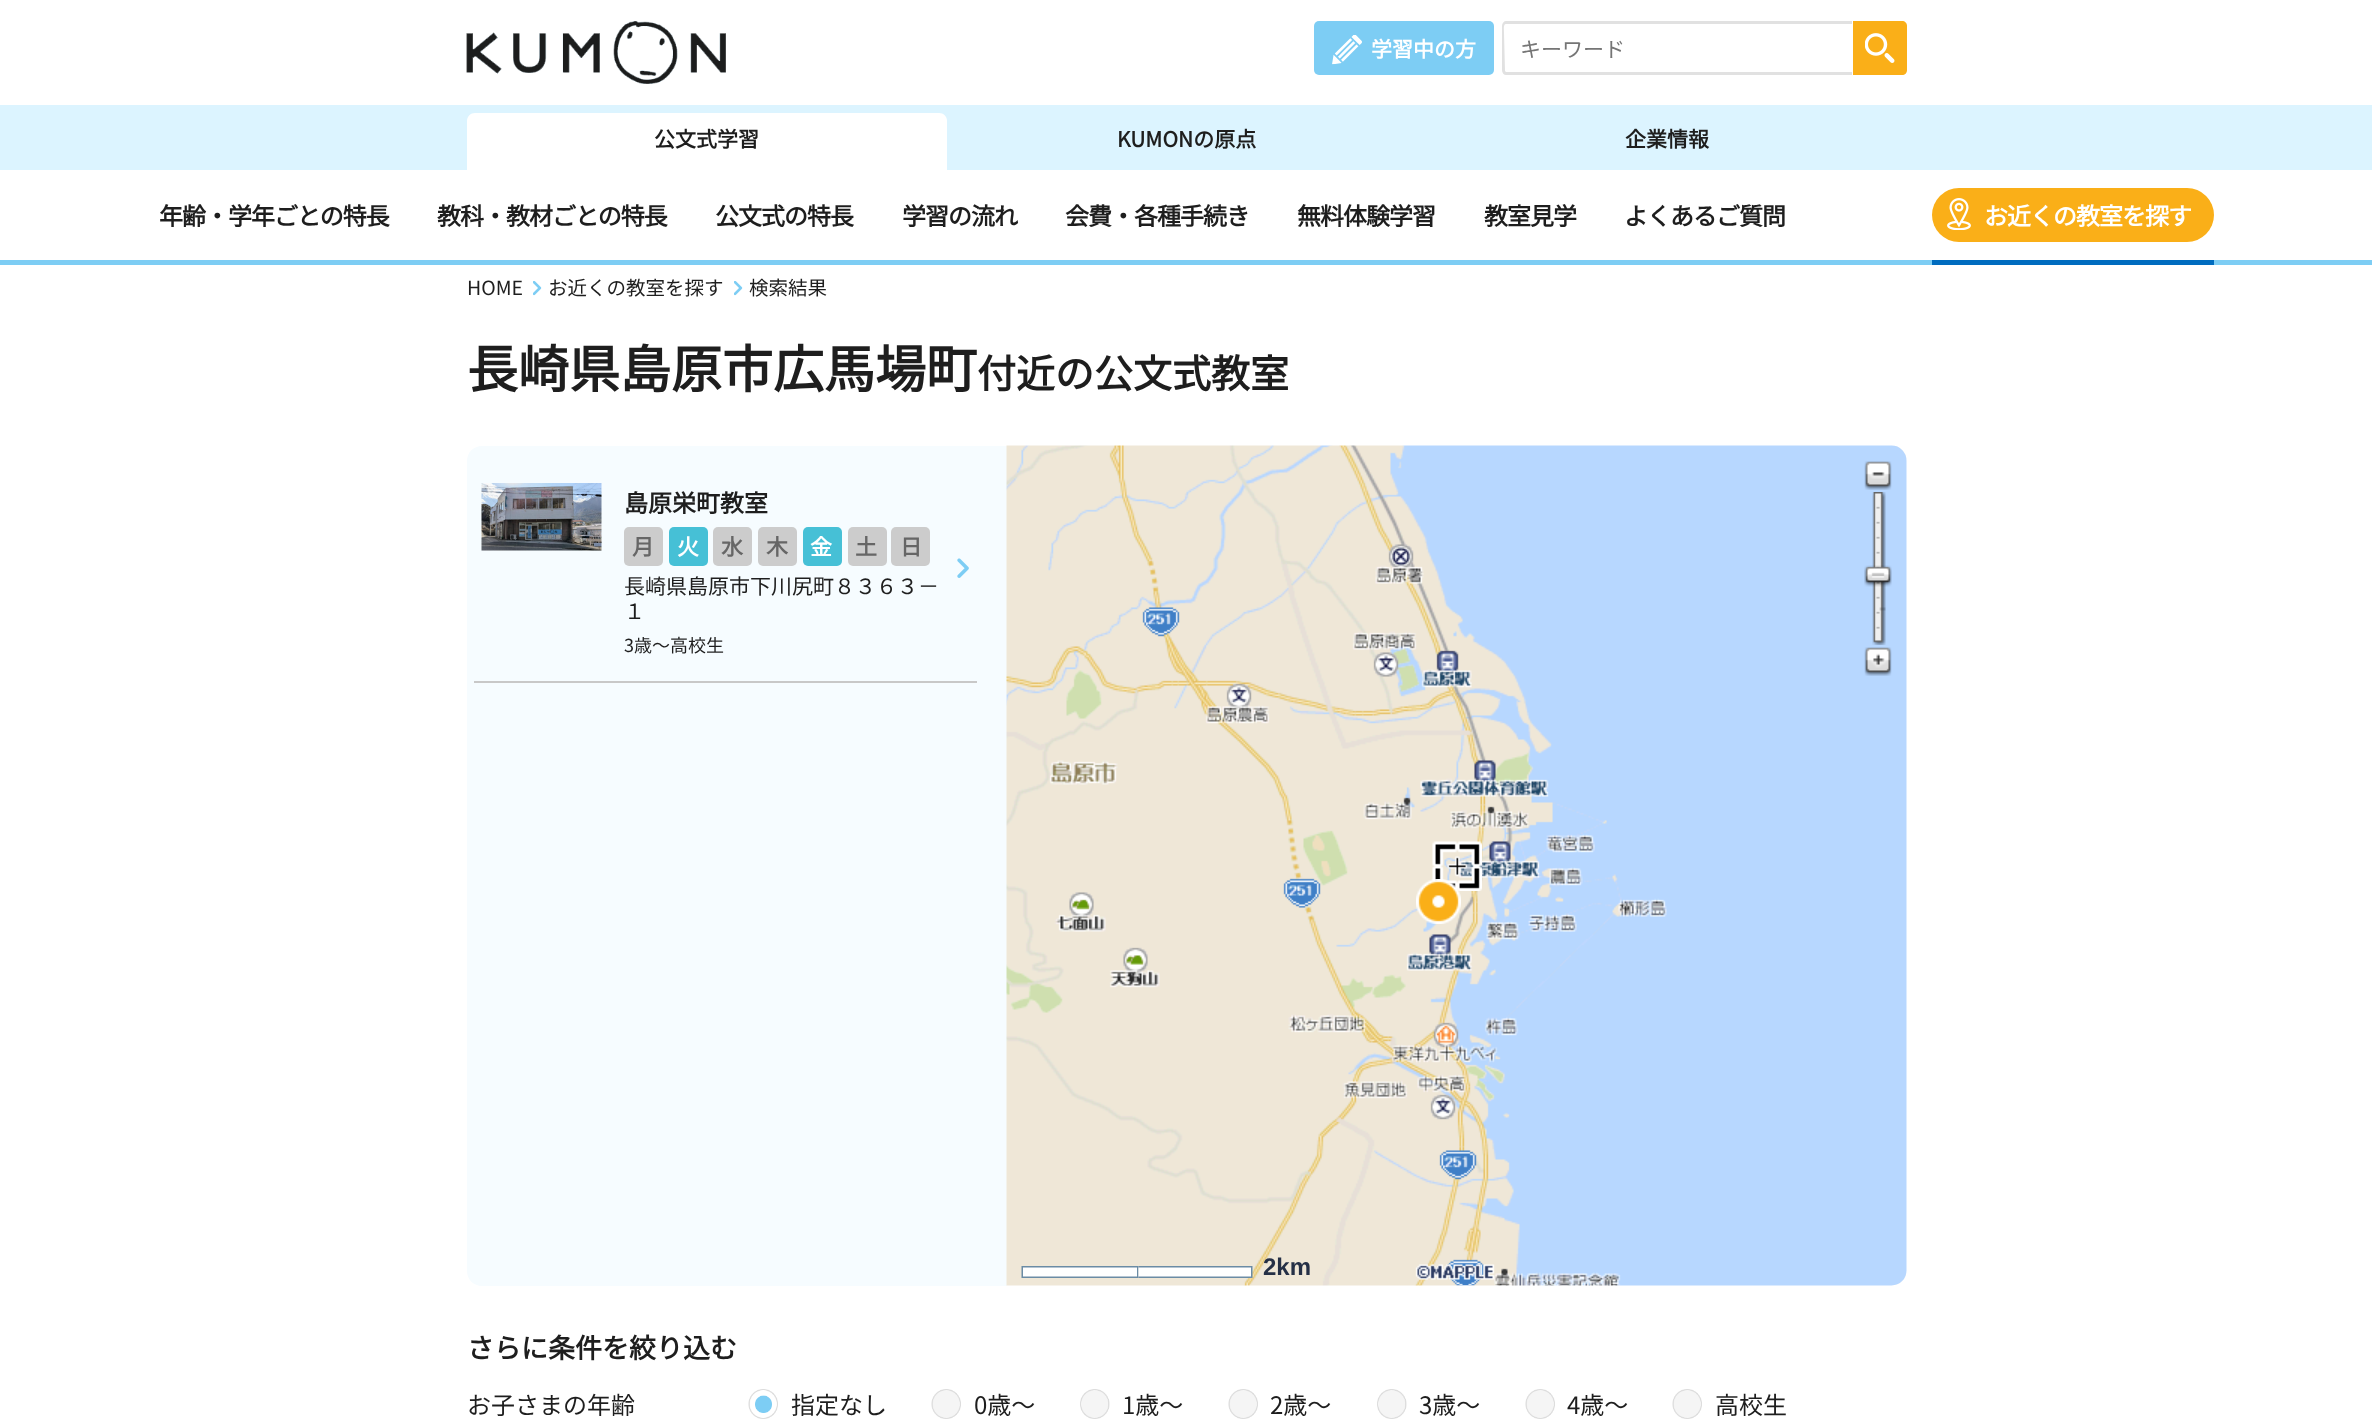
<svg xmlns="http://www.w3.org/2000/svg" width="2372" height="1427">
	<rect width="100%" height="100%" fill="#FFFFFF" />
	<image x="466" y="21" width="260" height="63" href="assets/img1.png" />
	<rect x="1314" y="21" width="180" height="54" rx="5" fill="#7DCDF4" />
	<image x="1332" y="35" width="30" height="30" href="assets/img2.png" />
	<text x="1371" y="57" font-family="Noto Sans JP" font-size="21" font-weight="700" fill="#FFFFFF">学習中の方</text>
	<path d="M1506 21H1852V75H1506C1504 75 1502 73 1502 70V26C1502 23 1504 21 1506 21ZM1506 24H1852V72H1506L1505 71L1504 33C1504 30 1503 24 1506 24Z" fill="#E1E1E1" fill-rule="evenodd" />
	<text x="1520" y="57" font-family="Noto Sans JP" font-size="21" font-weight="100" fill="#757575">キーワード</text>
	<path d="M1853 21H1902C1905 21 1907 23 1907 26V70C1907 73 1905 75 1902 75H1853Z" fill="#FAAF18" />
	<image x="1865" y="33" width="30" height="30" href="assets/img3.png" />
	<rect x="0" y="105" width="2372" height="65" fill="#DCF4FF" />
	<path d="M475 113H939C943.5 113 947 116.5 947 121V170H467V121C467 116.5 470.5 113 475 113Z" fill="#FFFFFF" />
	<g font-family="Noto Sans JP" font-size="21" font-weight="700" fill="#1E1E1E">
		<text x="654" y="147">公文式学習</text>
		<text x="1117" y="147">KUMONの原点</text>
		<text x="1625" y="147">企業情報</text>
	</g>
	<rect x="0" y="260" width="2372" height="5" fill="#7DCDF4" />
	<g font-family="Noto Sans JP" font-size="24" font-weight="700" letter-spacing="-1" fill="#1E1E1E">
		<text x="159" y="225">年齢・学年ごとの特長</text>
		<text x="437" y="225">教科・教材ごとの特長</text>
		<text x="715" y="225">公文式の特長</text>
		<text x="902" y="225">学習の流れ</text>
		<text x="1065" y="225">会費・各種手続き</text>
		<text x="1297" y="225">無料体験学習</text>
		<text x="1484" y="225">教室見学</text>
		<text x="1624" y="225">よくあるご質問</text>
	</g>
	<rect x="1932" y="188" width="282" height="54" rx="27" fill="#FAAF18" />
	<image x="1947" y="198" width="24" height="32" href="assets/img4.png" />
	<text x="1984" y="225" font-family="Noto Sans JP" font-size="24" font-weight="700" letter-spacing="-1" fill="#FFFFFF">お近くの教室を探す</text>
	<rect x="1932" y="260" width="282" height="5" fill="#006CBF" />
	<text x="467" y="295" font-family="Noto Sans JP" font-size="19.5" font-weight="100" fill="#1E1E1E">HOME</text>
	<image x="533" y="281" width="9" height="15" href="assets/img5.png" />
	<text x="548" y="295" font-family="Noto Sans JP" font-size="19.5" font-weight="100" fill="#1E1E1E">お近くの教室を探す</text>
	<image x="734" y="281" width="9" height="15" href="assets/img5.png" />
	<text x="749" y="295" font-family="Noto Sans JP" font-size="19.5" font-weight="100" fill="#1E1E1E">検索結果</text>
	<text x="467" y="388" font-family="Noto Sans JP" font-size="51" font-weight="700" fill="#1E1E1E">長崎県島原市広馬場町</text>
	<text x="977" y="388" font-family="Noto Sans JP" font-size="39" font-weight="700" fill="#1E1E1E">付近の公文式教室</text>
	<path d="M482 446H1007V1286H482C473.5 1286 467 1279.5 467 1271V461C467 452.5 473.5 446 482 446Z" fill="#F6FCFF" />
	<rect x="474" y="681" width="503" height="2" fill="#C8C8C8" />
	<image x="481" y="483" width="121" height="68" href="assets/img6.png" />
	<text x="624" y="512" font-family="Noto Sans JP" font-size="24" font-weight="700" fill="#1E1E1E">島原栄町教室</text>
	<rect x="624" y="527" width="39" height="39" rx="5" fill="#CCCCCC" />
	<text x="632" y="555" font-family="Noto Sans JP" font-size="22" font-weight="700" fill="#666666">月</text>
	<rect x="669" y="527" width="39" height="39" rx="5" fill="#46C0D6" />
	<text x="677" y="555" font-family="Noto Sans JP" font-size="22" font-weight="700" fill="#FFFFFF">火</text>
	<rect x="713" y="527" width="39" height="39" rx="5" fill="#CCCCCC" />
	<text x="721" y="555" font-family="Noto Sans JP" font-size="22" font-weight="700" fill="#666666">水</text>
	<rect x="758" y="527" width="39" height="39" rx="5" fill="#CCCCCC" />
	<text x="766" y="555" font-family="Noto Sans JP" font-size="22" font-weight="700" fill="#666666">木</text>
	<rect x="803" y="527" width="39" height="39" rx="5" fill="#46C0D6" />
	<text x="810" y="555" font-family="Noto Sans JP" font-size="22" font-weight="700" fill="#FFFFFF">金</text>
	<rect x="848" y="527" width="39" height="39" rx="5" fill="#CCCCCC" />
	<text x="855" y="555" font-family="Noto Sans JP" font-size="22" font-weight="700" fill="#666666">土</text>
	<rect x="891" y="527" width="39" height="39" rx="5" fill="#CCCCCC" />
	<text x="900" y="555" font-family="Noto Sans JP" font-size="22" font-weight="700" fill="#666666">日</text>
	<g font-family="Noto Sans JP" font-size="21" font-weight="100" fill="#1E1E1E">
		<text x="624" y="594">長崎県島原市下川尻町８３６３－</text>
		<text x="624" y="619">１</text>
	</g>
	<text x="624" y="652" font-family="Noto Sans JP" font-size="18" font-weight="100" fill="#1E1E1E">3歳～高校生</text>
	<image x="957" y="558" width="12" height="20" href="assets/img7.png" />
	<image x="1894" y="446" width="12" height="839" href="assets/img13.png" />
	<image x="1006" y="445" width="901" height="841" href="assets/img8.png" />
	<image x="1864" y="461" width="28" height="29" href="assets/img9.png" />
	<image x="1872" y="492" width="14" height="153" href="assets/img10.png" />
	<image x="1864" y="565" width="28" height="22" href="assets/img11.png" />
	<image x="1864" y="647" width="28" height="29" href="assets/img12.png" />
	<image x="1432" y="841" width="50" height="50" href="assets/img15.png" />
	<image x="1416" y="879" width="45" height="45" href="assets/img14.png" />
	<image x="1021" y="1266" width="2" height="12" href="assets/img16.png" />
	<image x="1023" y="1266" width="114" height="12" href="assets/img17.png" />
	<image x="1137" y="1266" width="2" height="12" href="assets/img18.png" />
	<image x="1138" y="1266" width="113" height="12" href="assets/img19.png" />
	<image x="1251" y="1266" width="2" height="12" href="assets/img20.png" />
	<text x="1263" y="1275" font-family="Liberation Sans" font-size="24" font-weight="700" fill="#253046">2km</text>
	<image x="1415" y="1264" width="80" height="16" href="assets/img21.png" />
	<text x="467" y="1358" font-family="Noto Sans JP" font-size="27" font-weight="700" fill="#1E1E1E">さらに条件を絞り込む</text>
	<text x="467" y="1414" font-family="Noto Sans JP" font-size="24" font-weight="100" fill="#1E1E1E">お子さまの年齢</text>
	<image x="748" y="1389" width="30" height="30" href="assets/img22.png" />
	<text x="791" y="1414" font-family="Noto Sans JP" font-size="24" font-weight="100" fill="#1E1E1E">指定なし</text>
	<image x="931" y="1389" width="30" height="30" href="assets/img23.png" />
	<text x="974" y="1414" font-family="Noto Sans JP" font-size="24" font-weight="100" fill="#1E1E1E">0歳〜</text>
	<image x="1080" y="1389" width="30" height="30" href="assets/img24.png" />
	<text x="1122" y="1414" font-family="Noto Sans JP" font-size="24" font-weight="100" fill="#1E1E1E">1歳〜</text>
	<image x="1228" y="1389" width="30" height="30" href="assets/img23.png" />
	<text x="1270" y="1414" font-family="Noto Sans JP" font-size="24" font-weight="100" fill="#1E1E1E">2歳〜</text>
	<image x="1377" y="1389" width="30" height="30" href="assets/img24.png" />
	<text x="1419" y="1414" font-family="Noto Sans JP" font-size="24" font-weight="100" fill="#1E1E1E">3歳〜</text>
	<image x="1525" y="1389" width="30" height="30" href="assets/img23.png" />
	<text x="1567" y="1414" font-family="Noto Sans JP" font-size="24" font-weight="100" fill="#1E1E1E">4歳〜</text>
	<image x="1672" y="1389" width="30" height="30" href="assets/img23.png" />
	<text x="1715" y="1414" font-family="Noto Sans JP" font-size="24" font-weight="100" fill="#1E1E1E">高校生</text>
</svg>
